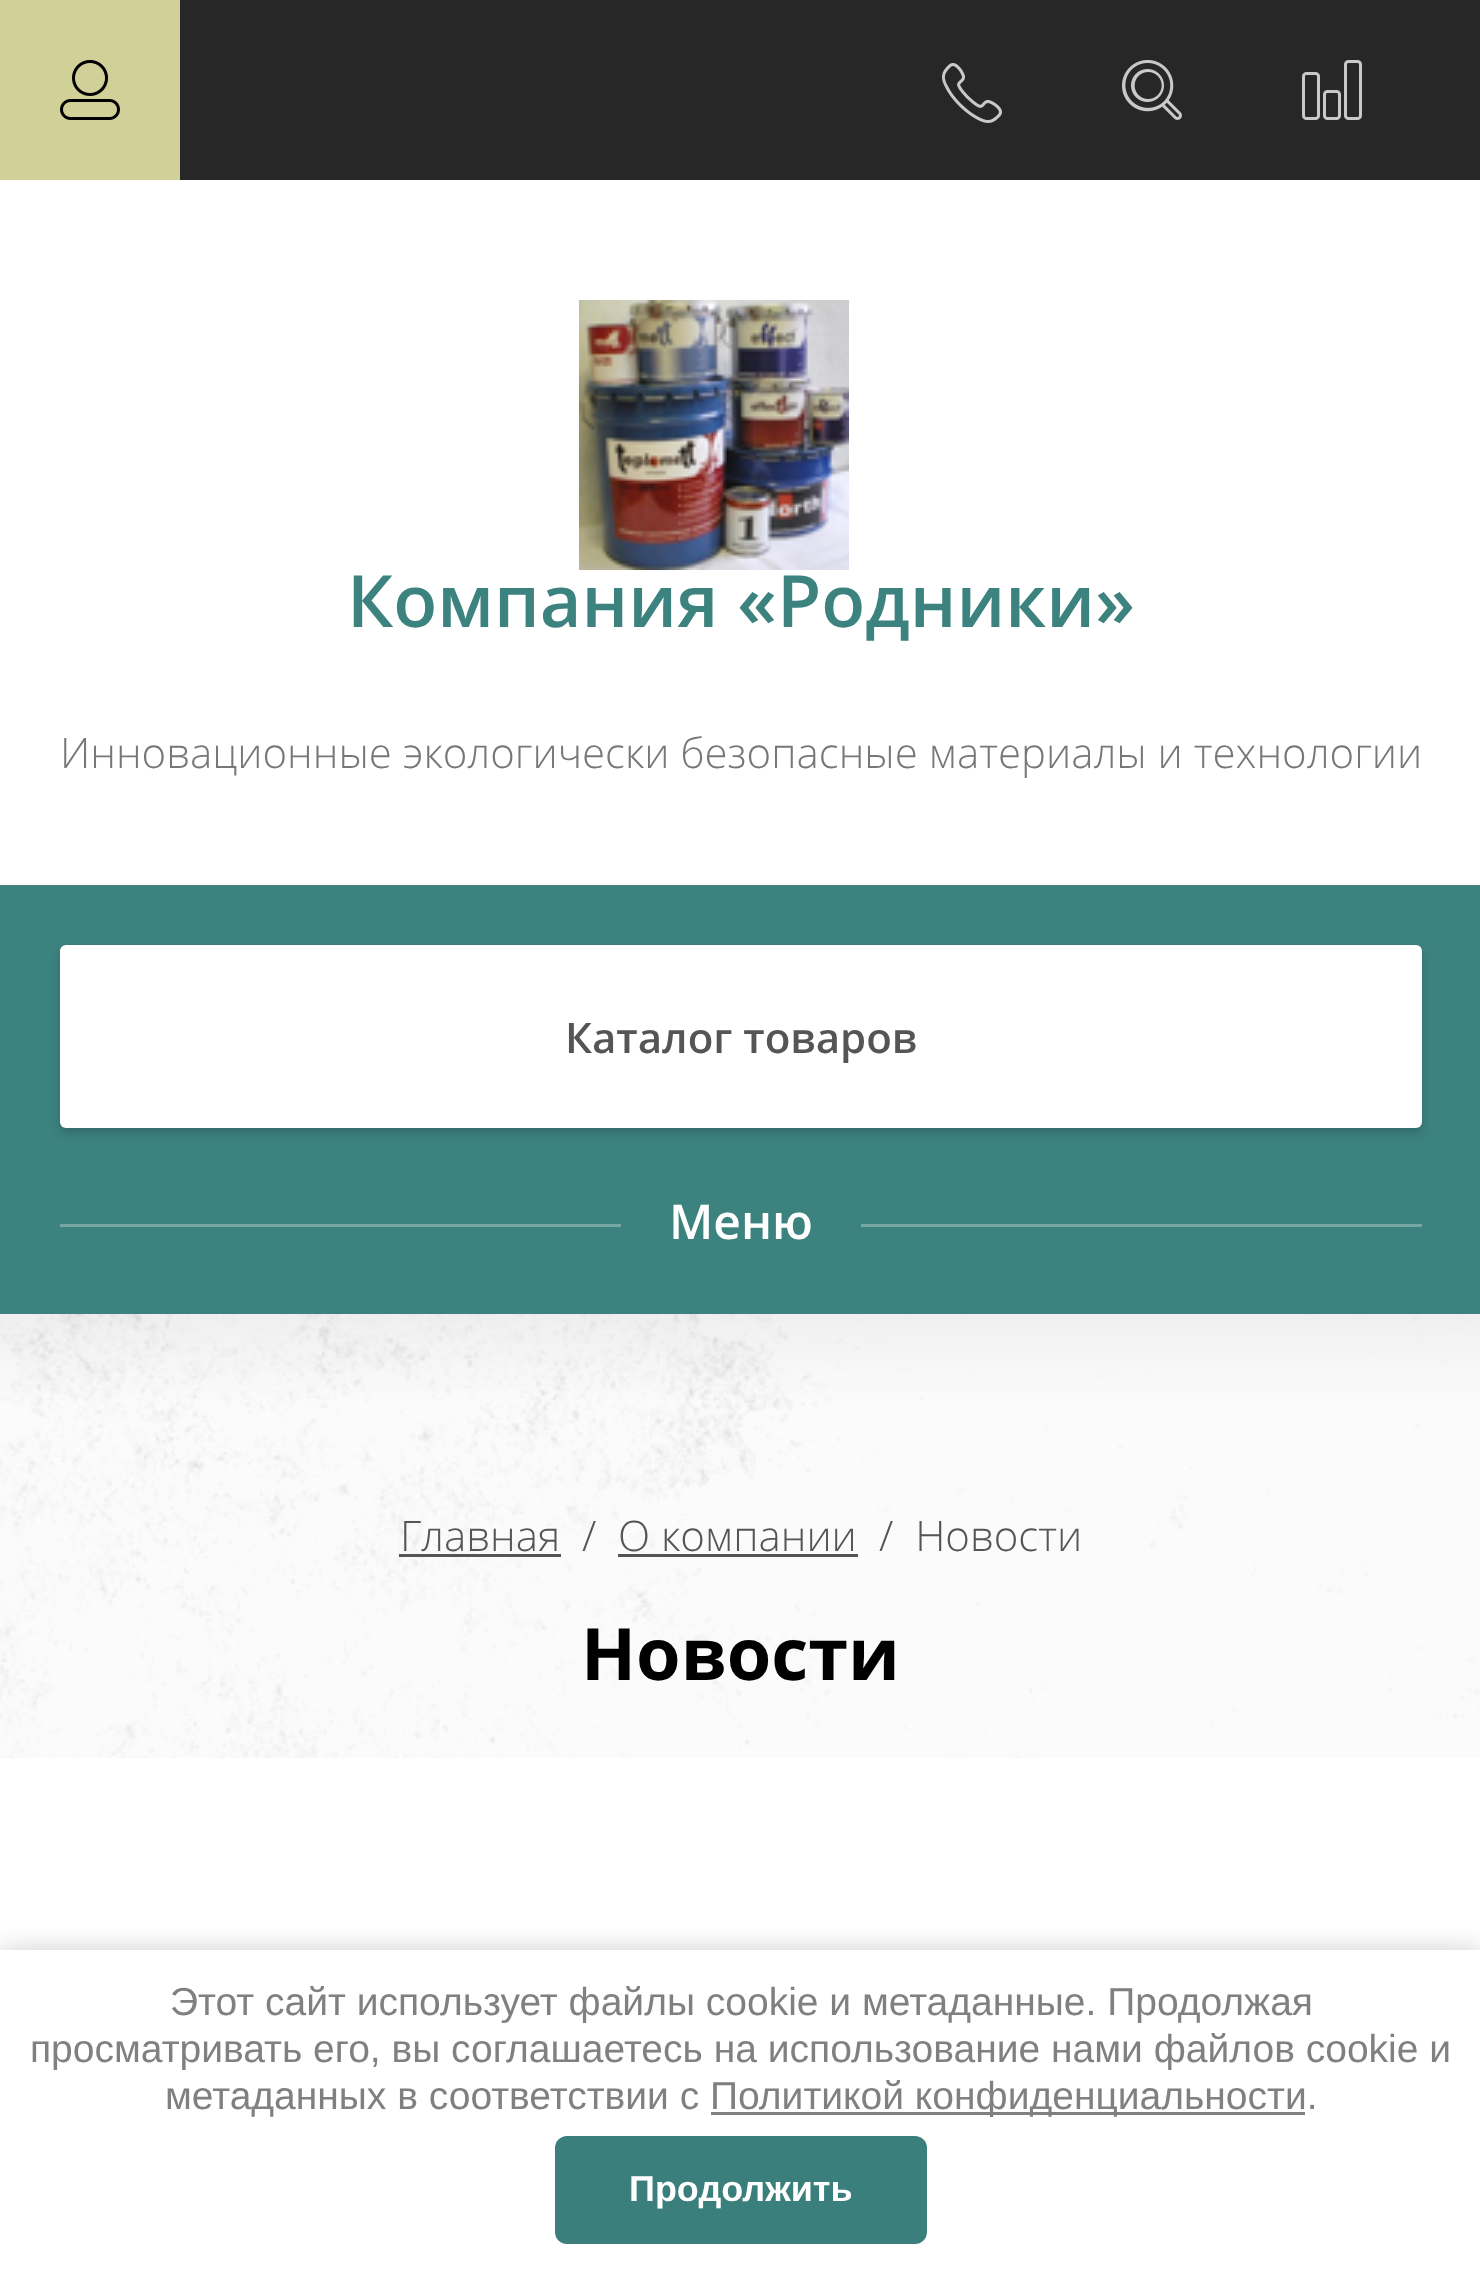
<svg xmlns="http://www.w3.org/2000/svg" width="1480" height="2274">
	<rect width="100%" height="100%" fill="#FFFFFF" />
	<rect x="180" y="0" width="1300" height="180" fill="#272727" />
	<rect x="0" y="0" width="180" height="180" fill="#D1D098" />
	<image x="60" y="60" width="60" height="60" href="assets/img1.png" />
	<image x="942" y="63" width="60" height="60" href="assets/img2.png" />
	<image x="1122" y="60" width="60" height="60" href="assets/img3.png" />
	<image x="1302" y="60" width="60" height="60" href="assets/img4.png" />
	<image x="579" y="300" width="270" height="270" href="assets/img5.png" />
	<text x="347" y="627" font-family="Open Sans" font-size="72" font-weight="600" fill="#3C827E">Компания «Родники»</text>
	<text x="60" y="768" font-family="Open Sans" font-size="42" font-weight="300" fill="#777777">Инновационные экологически безопасные материалы и технологии</text>
	<rect x="0" y="885" width="1480" height="429" fill="#3C827E" />
	<rect x="60" y="951" width="1362" height="183" rx="6" fill="#000000" fill-opacity="0.15" filter="blur(4.5px)" />
	<rect x="60" y="945" width="1362" height="183" rx="6" fill="#FFFFFF" />
	<text x="565" y="1053" font-family="Open Sans" font-size="42" font-weight="600" fill="#555555">Каталог товаров</text>
	<rect x="60" y="1224" width="1362" height="3" fill="#75A6A3" />
	<rect x="621" y="1224" width="240" height="3" fill="#3C827E" />
	<text x="669" y="1239" font-family="Open Sans" font-size="48" font-weight="600" fill="#FFFFFF">Меню</text>
	<image x="0" y="1314" width="1480" height="444" href="assets/img6.png" />
	<text x="400" y="1551" font-family="Open Sans" font-size="42" font-weight="300" fill="#555555">Главная</text>
	<rect x="399" y="1554" width="162" height="3" fill="#555555" />
	<g font-family="Open Sans" font-size="42" font-weight="300" fill="#555555">
		<text x="582" y="1551">/</text>
		<text x="618" y="1551">О компании</text>
	</g>
	<rect x="618" y="1554" width="240" height="3" fill="#555555" />
	<text x="879" y="1551" font-family="Open Sans" font-size="42" font-weight="300" fill="#555555" xml:space="preserve">/  Новости</text>
	<text x="581" y="1680" font-family="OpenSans" font-size="72" font-weight="700" fill="#000000">Новости</text>
	<rect x="0" y="1953" width="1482" height="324" fill="#000000" fill-opacity="0.23" filter="blur(15px)" />
	<rect x="0" y="1950" width="1480" height="324" fill="#FFFFFF" />
	<g font-family="Liberation Sans" font-size="39" fill="#808080">
		<text x="170" y="2015">Этот сайт использует файлы cookie и метаданные. Продолжая</text>
		<text x="30" y="2062">просматривать его, вы соглашаетесь на использование нами файлов cookie и</text>
		<text x="165" y="2109">метаданных в соответствии с</text>
	</g>
	<rect x="711" y="2112" width="594" height="3" fill="#808080" />
	<text x="710" y="2109" font-family="Liberation Sans" font-size="39" fill="#808080">Политикой конфиденциальности.</text>
	<rect x="555" y="2136" width="372" height="108" rx="12" fill="#3A7F7B" />
	<text x="629" y="2201" font-family="Liberation Sans" font-size="36" font-weight="700" fill="#FFFFFF">Продолжить</text>
</svg>
